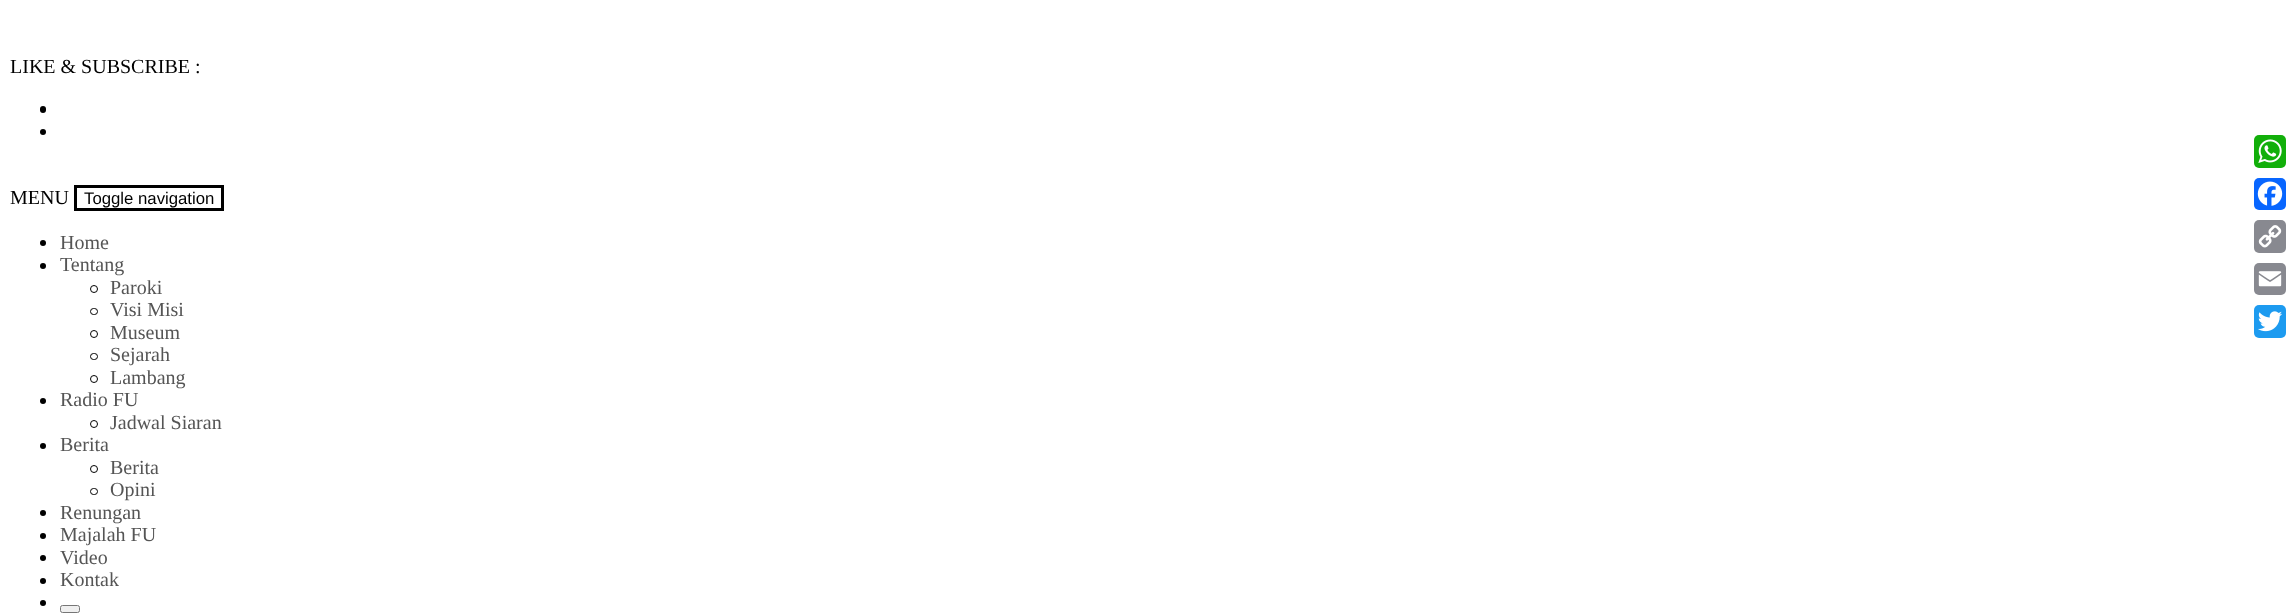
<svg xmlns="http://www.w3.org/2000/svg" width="2296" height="613">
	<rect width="100%" height="100%" fill="#FFFFFF" />
	<text x="10" y="73" font-family="Liberation Serif" font-size="20" fill="#000000">LIKE &amp; SUBSCRIBE :</text>
	<rect x="40" y="106" width="6" height="7" rx="3" fill="#000000" />
	<circle cx="43" cy="132" r="3" fill="#000000" />
	<text x="10" y="204" font-family="Liberation Serif" font-size="20" fill="#000000">MENU</text>
	<rect x="75.5" y="186.5" width="147" height="23" fill="none" stroke="#000000" stroke-width="3" />
	<text x="84" y="204" font-family="Liberation Sans" font-size="16.75" fill="#000000">Toggle navigation</text>
	<circle cx="43" cy="243" r="3" fill="#000000" />
	<text x="60" y="249" font-family="Liberation Serif" font-size="20" fill="#555555">Home</text>
	<circle cx="43" cy="266" r="3" fill="#000000" />
	<text x="60" y="271" font-family="Liberation Serif" font-size="20" fill="#555555">Tentang</text>
	<circle cx="94" cy="289" r="3.5" fill="none" stroke="#000000" />
	<text x="110" y="294" font-family="Liberation Serif" font-size="20" fill="#555555">Paroki</text>
	<rect x="90.5" y="308.5" width="7" height="6" rx="3" fill="none" stroke="#000000" />
	<text x="110" y="316" font-family="Liberation Serif" font-size="20" fill="#555555">Visi Misi</text>
	<circle cx="94" cy="334" r="3.5" fill="none" stroke="#000000" />
	<text x="110" y="339" font-family="Liberation Serif" font-size="20" fill="#555555">Museum</text>
	<rect x="90.5" y="353.5" width="7" height="6" rx="3" fill="none" stroke="#000000" />
	<text x="110" y="361" font-family="Liberation Serif" font-size="20" fill="#555555">Sejarah</text>
	<circle cx="94" cy="379" r="3.5" fill="none" stroke="#000000" />
	<text x="110" y="384" font-family="Liberation Serif" font-size="20" fill="#555555">Lambang</text>
	<circle cx="43" cy="401" r="3" fill="#000000" />
	<text x="60" y="406" font-family="Liberation Serif" font-size="20" fill="#555555">Radio FU</text>
	<circle cx="94" cy="424" r="3.5" fill="none" stroke="#000000" />
	<text x="110" y="429" font-family="Liberation Serif" font-size="20" fill="#555555">Jadwal Siaran</text>
	<circle cx="43" cy="446" r="3" fill="#000000" />
	<text x="60" y="451" font-family="Liberation Serif" font-size="20" fill="#555555">Berita</text>
	<circle cx="94" cy="469" r="3.5" fill="none" stroke="#000000" />
	<text x="110" y="474" font-family="Liberation Serif" font-size="20" fill="#555555">Berita</text>
	<rect x="90.5" y="488.5" width="7" height="6" rx="3" fill="none" stroke="#000000" />
	<text x="110" y="496" font-family="Liberation Serif" font-size="20" fill="#555555">Opini</text>
	<circle cx="43" cy="513" r="3" fill="#000000" />
	<text x="60" y="519" font-family="Liberation Serif" font-size="20" fill="#555555">Renungan</text>
	<circle cx="43" cy="536" r="3" fill="#000000" />
	<text x="60" y="541" font-family="Liberation Serif" font-size="20" fill="#555555">Majalah FU</text>
	<circle cx="43" cy="558" r="3" fill="#000000" />
	<text x="60" y="564" font-family="Liberation Serif" font-size="20" fill="#555555">Video</text>
	<circle cx="43" cy="581" r="3" fill="#000000" />
	<text x="60" y="586" font-family="Liberation Serif" font-size="20" fill="#555555">Kontak</text>
	<circle cx="43" cy="603" r="3" fill="#000000" />
	<rect x="60.5" y="605.5" width="19" height="7" rx="2" fill="#EFEFEF" stroke="#767676" />
	<rect x="2254" y="135" width="32" height="33" rx="5" fill="#12AF0A" />
	<image x="2258" y="139" width="24" height="24" href="assets/img1.png" />
	<rect x="2254" y="178" width="32" height="32" rx="5" fill="#0866FF" />
	<image x="2257" y="181" width="26" height="25" href="assets/img2.png" />
	<rect x="2254" y="220" width="32" height="33" rx="5" fill="#888990" />
	<image x="2258" y="225" width="24" height="23" href="assets/img3.png" />
	<rect x="2254" y="263" width="32" height="32" rx="5" fill="#888990" />
	<image x="2258" y="271" width="24" height="16" href="assets/img4.png" />
	<rect x="2254" y="305" width="32" height="33" rx="5" fill="#1D9BF0" />
	<image x="2258" y="311" width="24" height="21" href="assets/img5.png" />
</svg>
